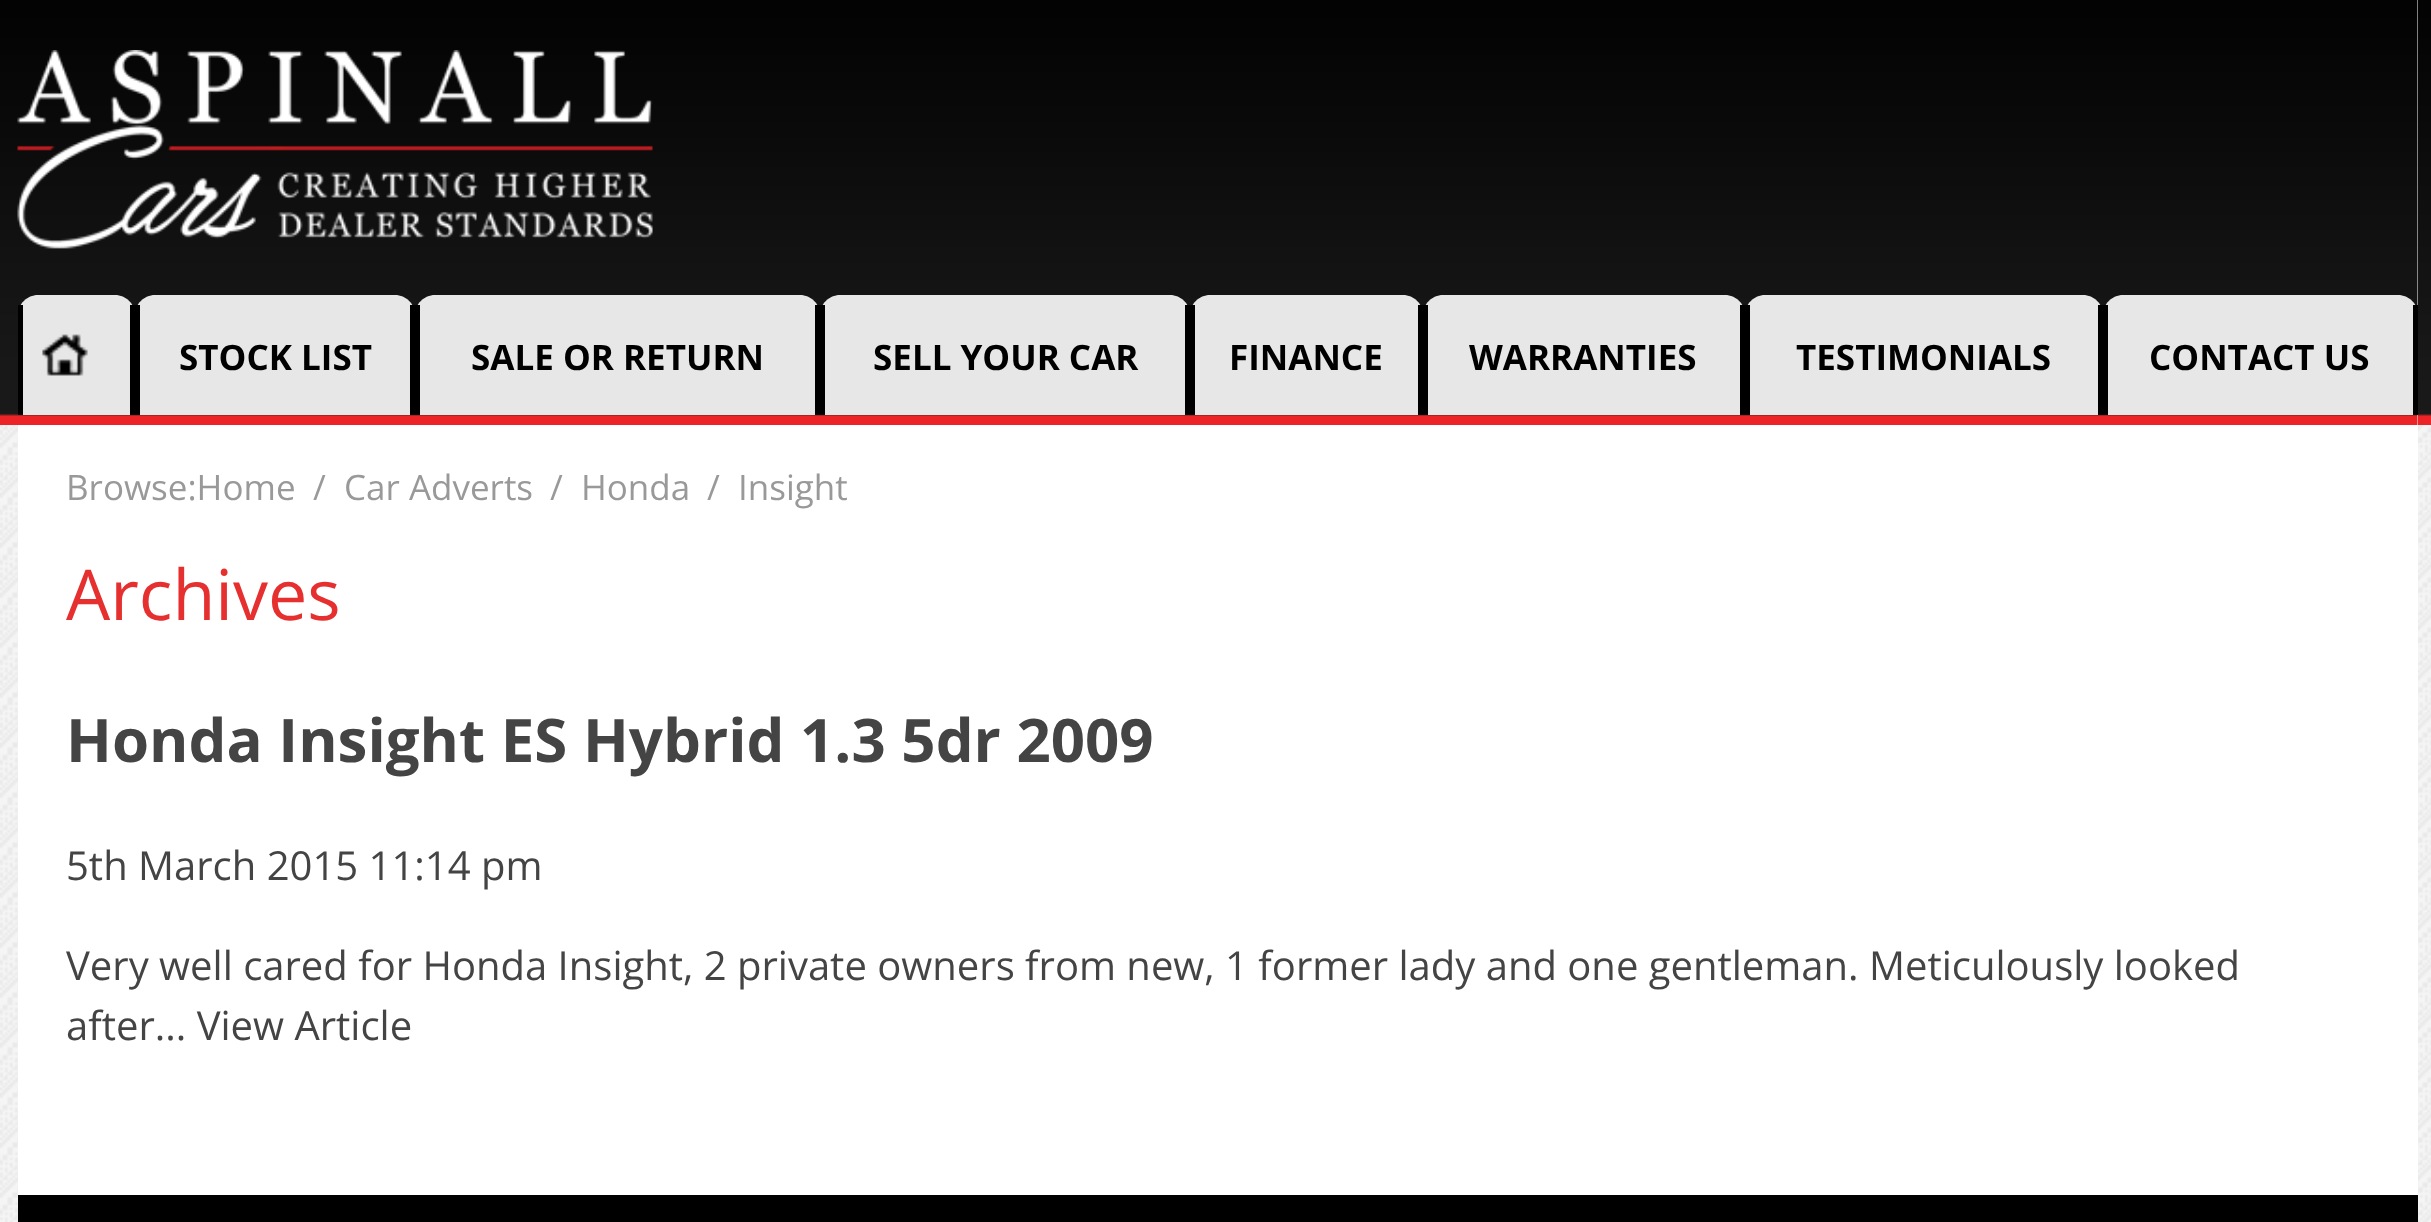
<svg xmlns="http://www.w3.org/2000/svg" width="2431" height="1222">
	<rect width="100%" height="100%" fill="#FFFFFF" />
	<image x="0" y="425" width="2431" height="797" href="assets/img1.png" />
	<image x="0" y="0" width="2431" height="425" href="assets/img2.png" />
	<rect x="18" y="0" width="2400" height="1195" fill="#FFFFFF" />
	<image x="18" y="0" width="2400" height="425" href="assets/img3.png" />
	<image x="17" y="50" width="636" height="199" href="assets/img4.png" />
	<path d="M38 295H115C126 295 135 304 135 315V415H18V315C18 304 27 295 38 295Z" fill="#E7E7E7" />
	<rect x="130" y="305" width="5" height="110" fill="#000000" />
	<rect x="18" y="305" width="5" height="110" fill="#000000" />
	<image x="42" y="334" width="46" height="42" href="assets/img5.png" />
	<path d="M155 295H395C406 295 415 304 415 315V415H135V315C135 304 144 295 155 295Z" fill="#E7E7E7" />
	<rect x="410" y="305" width="5" height="110" fill="#000000" />
	<rect x="135" y="305" width="5" height="110" fill="#000000" />
	<text x="179" y="370" font-family="Open Sans" font-size="35" font-weight="700" fill="#000000">STOCK LIST</text>
	<path d="M435 295H800C811 295 820 304 820 315V415H415V315C415 304 424 295 435 295Z" fill="#E7E7E7" />
	<rect x="815" y="305" width="5" height="110" fill="#000000" />
	<rect x="415" y="305" width="5" height="110" fill="#000000" />
	<text x="471" y="370" font-family="Open Sans" font-size="35" font-weight="700" fill="#000000">SALE OR RETURN</text>
	<path d="M840 295H1170C1181 295 1190 304 1190 315V415H820V315C820 304 829 295 840 295Z" fill="#E7E7E7" />
	<rect x="1185" y="305" width="5" height="110" fill="#000000" />
	<rect x="820" y="305" width="5" height="110" fill="#000000" />
	<text x="873" y="370" font-family="Open Sans" font-size="35" font-weight="700" fill="#000000">SELL YOUR CAR</text>
	<path d="M1210 295H1403C1414 295 1423 304 1423 315V415H1190V315C1190 304 1199 295 1210 295Z" fill="#E7E7E7" />
	<rect x="1418" y="305" width="5" height="110" fill="#000000" />
	<rect x="1190" y="305" width="5" height="110" fill="#000000" />
	<text x="1229" y="370" font-family="Open Sans" font-size="35" font-weight="700" fill="#000000">FINANCE</text>
	<path d="M1443 295H1725C1736 295 1745 304 1745 315V415H1423V315C1423 304 1432 295 1443 295Z" fill="#E7E7E7" />
	<rect x="1740" y="305" width="5" height="110" fill="#000000" />
	<rect x="1423" y="305" width="5" height="110" fill="#000000" />
	<text x="1469" y="370" font-family="Open Sans" font-size="35" font-weight="700" fill="#000000">WARRANTIES</text>
	<path d="M1765 295H2083C2094 295 2103 304 2103 315V415H1745V315C1745 304 1754 295 1765 295Z" fill="#E7E7E7" />
	<rect x="2098" y="305" width="5" height="110" fill="#000000" />
	<rect x="1745" y="305" width="5" height="110" fill="#000000" />
	<text x="1796" y="370" font-family="Open Sans" font-size="35" font-weight="700" fill="#000000">TESTIMONIALS</text>
	<path d="M2123 295H2398C2409 295 2418 304 2418 315V415H2103V315C2103 304 2112 295 2123 295Z" fill="#E7E7E7" />
	<rect x="2413" y="305" width="5" height="110" fill="#000000" />
	<rect x="2103" y="305" width="5" height="110" fill="#000000" />
	<text x="2149" y="370" font-family="Open Sans" font-size="35" font-weight="700" fill="#000000">CONTACT US</text>
	<g font-family="Open Sans" font-size="35" fill="#999999">
		<text x="66" y="500">Browse:Home</text>
		<text x="313" y="500">/</text>
		<text x="344" y="500">Car Adverts</text>
		<text x="550" y="500">/</text>
		<text x="581" y="500">Honda</text>
		<text x="707" y="500">/</text>
		<text x="738" y="500">Insight</text>
	</g>
	<text x="66" y="620" font-family="Open Sans" font-size="70" fill="#E63030">Archives</text>
	<text x="66" y="762" font-family="Open Sans" font-size="60" font-weight="700" fill="#444444">Honda Insight ES Hybrid 1.3 5dr 2009</text>
	<g font-family="Open Sans" font-size="40" fill="#444444">
		<text x="66" y="880">5th March 2015 11:14 pm</text>
		<text x="66" y="980">Very well cared for Honda Insight, 2 private owners from new, 1 former lady and one gentleman. Meticulously looked</text>
		<text x="66" y="1040">after... View Article</text>
	</g>
	<rect x="18" y="1195" width="2400" height="27" fill="#000000" />
</svg>
